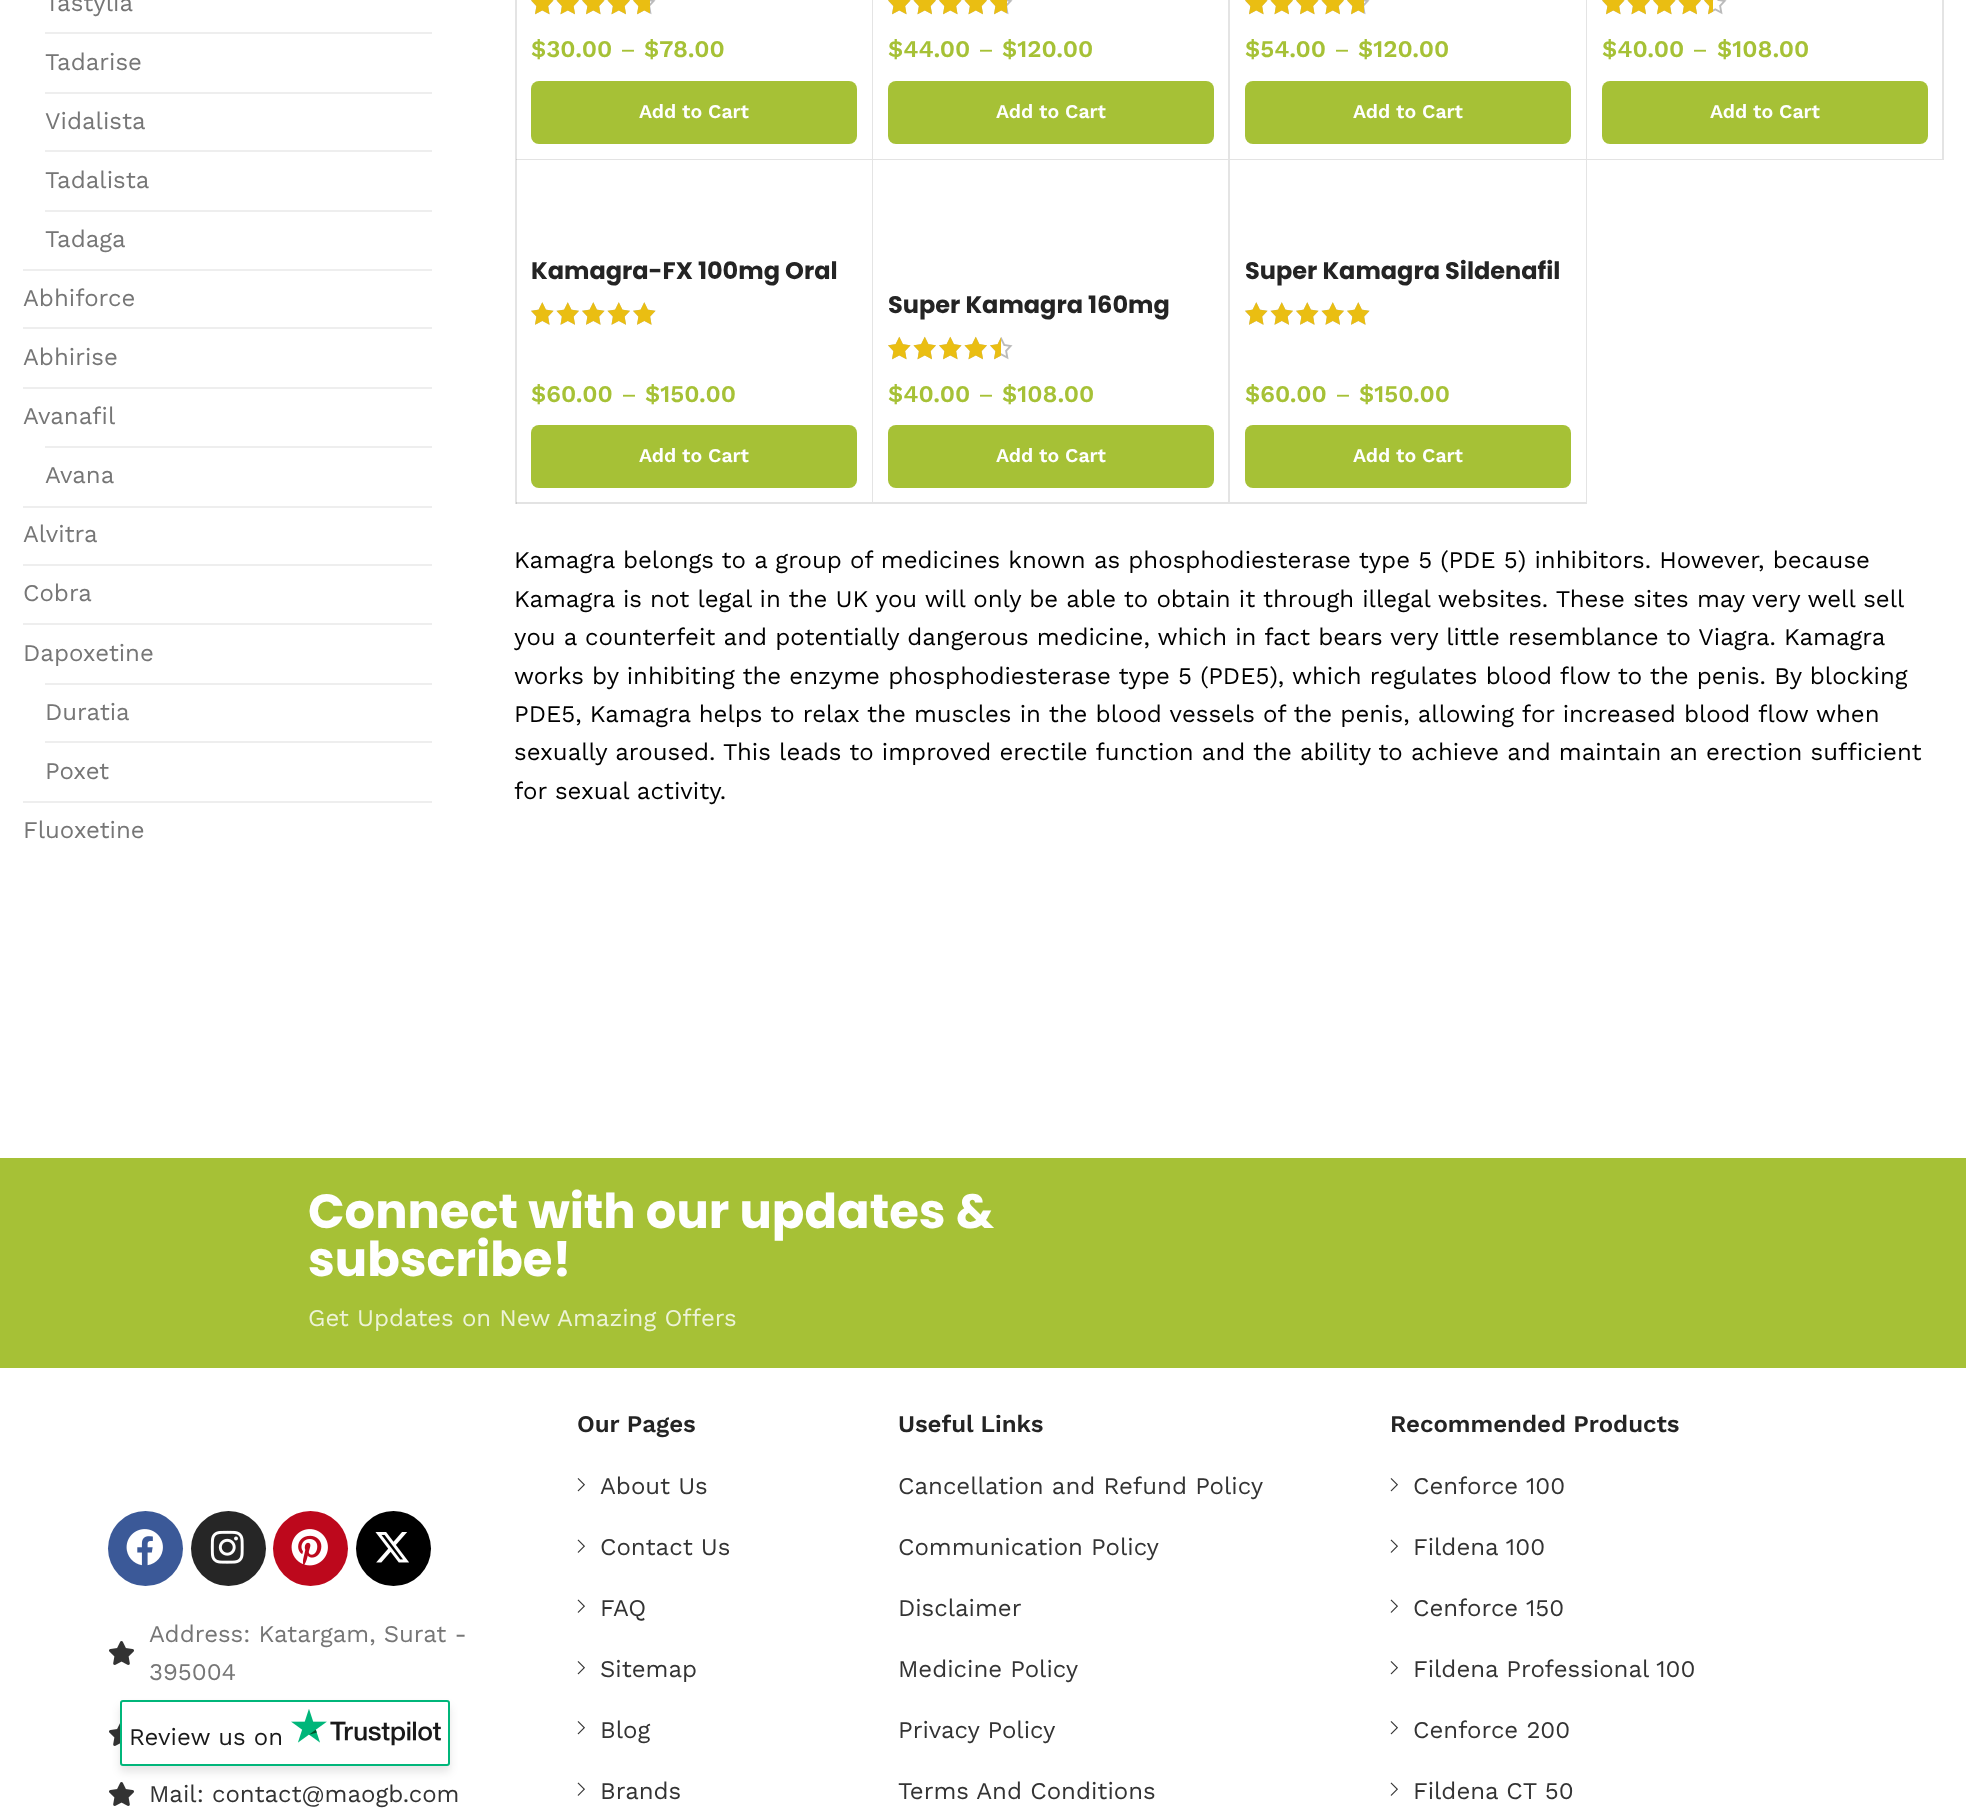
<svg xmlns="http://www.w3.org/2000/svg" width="1966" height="1810">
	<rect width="100%" height="100%" fill="#FFFFFF" />
	<text x="45" y="11" font-family="Work Sans" font-size="24" fill="#767676">Tastylia</text>
	<rect x="45" y="32" width="387" height="2" fill="#EEEEEE" />
	<text x="45" y="70" font-family="Work Sans" font-size="24" fill="#767676">Tadarise</text>
	<rect x="45" y="92" width="387" height="2" fill="#EEEEEE" />
	<text x="45" y="129" font-family="Work Sans" font-size="24" fill="#767676">Vidalista</text>
	<rect x="45" y="150" width="387" height="2" fill="#EEEEEE" />
	<text x="45" y="188" font-family="Work Sans" font-size="24" fill="#767676">Tadalista</text>
	<rect x="45" y="210" width="387" height="2" fill="#EEEEEE" />
	<text x="45" y="247" font-family="Work Sans" font-size="24" fill="#767676">Tadaga</text>
	<rect x="23" y="269" width="409" height="2" fill="#EEEEEE" />
	<text x="23" y="306" font-family="Work Sans" font-size="24" fill="#767676">Abhiforce</text>
	<rect x="23" y="327" width="409" height="2" fill="#EEEEEE" />
	<text x="23" y="365" font-family="Work Sans" font-size="24" fill="#767676">Abhirise</text>
	<rect x="23" y="387" width="409" height="2" fill="#EEEEEE" />
	<text x="23" y="424" font-family="Work Sans" font-size="24" fill="#767676">Avanafil</text>
	<rect x="45" y="446" width="387" height="2" fill="#EEEEEE" />
	<text x="45" y="483" font-family="Work Sans" font-size="24" fill="#767676">Avana</text>
	<rect x="23" y="506" width="409" height="2" fill="#EEEEEE" />
	<text x="23" y="542" font-family="Work Sans" font-size="24" fill="#767676">Alvitra</text>
	<rect x="23" y="564" width="409" height="2" fill="#EEEEEE" />
	<text x="23" y="601" font-family="Work Sans" font-size="24" fill="#767676">Cobra</text>
	<rect x="23" y="623" width="409" height="2" fill="#EEEEEE" />
	<text x="23" y="661" font-family="Work Sans" font-size="24" fill="#767676">Dapoxetine</text>
	<rect x="45" y="683" width="387" height="2" fill="#EEEEEE" />
	<text x="45" y="720" font-family="Work Sans" font-size="24" fill="#767676">Duratia</text>
	<rect x="45" y="741" width="387" height="2" fill="#EEEEEE" />
	<text x="45" y="779" font-family="Work Sans" font-size="24" fill="#767676">Poxet</text>
	<rect x="23" y="801" width="409" height="2" fill="#EEEEEE" />
	<text x="23" y="838" font-family="Work Sans" font-size="24" fill="#767676">Fluoxetine</text>
	<rect x="515" y="0" width="2" height="504" fill="#E4E4E4" />
	<path d="M873-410V160L872 159V-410Z" fill="#E4E4E4" />
	<path d="M873 160H516V159H872Z" fill="#000000" fill-opacity="0.11" />
	<image x="531" y="0" width="125" height="15" href="assets/img1.png" />
	<image x="531" y="0" width="119" height="15" href="assets/img2.png" />
	<text x="531" y="57" font-family="Work Sans" font-size="24" font-weight="600" fill="#A6C136">$30.00</text>
	<text x="620" y="57" font-family="Work Sans" font-size="24" fill="#A6C136">–</text>
	<text x="644" y="57" font-family="Work Sans" font-size="24" font-weight="600" fill="#A6C136">$78.00</text>
	<rect x="531" y="81" width="326" height="63" rx="8" fill="#A6C136" />
	<text x="639" y="118" font-family="Work Sans" font-size="19.5" font-weight="600" fill="#FFFFFF">Add to Cart</text>
	<path d="M1230-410V160L1228 159V-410Z" fill="#E4E4E4" />
	<path d="M1230 160H873V159H1228Z" fill="#000000" fill-opacity="0.11" />
	<image x="888" y="0" width="125" height="15" href="assets/img1.png" />
	<image x="888" y="0" width="119" height="15" href="assets/img2.png" />
	<text x="888" y="57" font-family="Work Sans" font-size="24" font-weight="600" fill="#A6C136">$44.00</text>
	<text x="978" y="57" font-family="Work Sans" font-size="24" fill="#A6C136">–</text>
	<text x="1002" y="57" font-family="Work Sans" font-size="24" font-weight="600" fill="#A6C136">$120.00</text>
	<rect x="888" y="81" width="326" height="63" rx="8" fill="#A6C136" />
	<text x="996" y="118" font-family="Work Sans" font-size="19.5" font-weight="600" fill="#FFFFFF">Add to Cart</text>
	<path d="M1587-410V160L1586 159V-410Z" fill="#E4E4E4" />
	<path d="M1587 160H1230V159H1586Z" fill="#000000" fill-opacity="0.11" />
	<image x="1245" y="0" width="125" height="15" href="assets/img1.png" />
	<image x="1245" y="0" width="119" height="15" href="assets/img2.png" />
	<text x="1245" y="57" font-family="Work Sans" font-size="24" font-weight="600" fill="#A6C136">$54.00</text>
	<text x="1334" y="57" font-family="Work Sans" font-size="24" fill="#A6C136">–</text>
	<text x="1358" y="57" font-family="Work Sans" font-size="24" font-weight="600" fill="#A6C136">$120.00</text>
	<rect x="1245" y="81" width="326" height="63" rx="8" fill="#A6C136" />
	<text x="1353" y="118" font-family="Work Sans" font-size="19.5" font-weight="600" fill="#FFFFFF">Add to Cart</text>
	<path d="M1944-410V160L1942 159V-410Z" fill="#E4E4E4" />
	<path d="M1944 160H1587V159H1942Z" fill="#000000" fill-opacity="0.11" />
	<image x="1602" y="0" width="125" height="15" href="assets/img1.png" />
	<image x="1602" y="0" width="111" height="15" href="assets/img3.png" />
	<text x="1602" y="57" font-family="Work Sans" font-size="24" font-weight="600" fill="#A6C136">$40.00</text>
	<text x="1692" y="57" font-family="Work Sans" font-size="24" fill="#A6C136">–</text>
	<text x="1717" y="57" font-family="Work Sans" font-size="24" font-weight="600" fill="#A6C136">$108.00</text>
	<rect x="1602" y="81" width="326" height="63" rx="8" fill="#A6C136" />
	<text x="1710" y="118" font-family="Work Sans" font-size="19.5" font-weight="600" fill="#FFFFFF">Add to Cart</text>
	<path d="M873 160V504L872 502V160Z" fill="#E4E4E4" />
	<path d="M873 504H516V502H872Z" fill="#000000" fill-opacity="0.11" />
	<text x="531" y="279" font-family="Poppins" font-size="24" font-weight="700" fill="#242424">Kamagra-FX 100mg Oral</text>
	<image x="531" y="302" width="125" height="23" href="assets/img4.png" />
	<image x="531" y="302" width="125" height="23" href="assets/img5.png" />
	<text x="531" y="402" font-family="Work Sans" font-size="24" font-weight="600" fill="#A6C136">$60.00</text>
	<text x="621" y="402" font-family="Work Sans" font-size="24" fill="#A6C136">–</text>
	<text x="645" y="402" font-family="Work Sans" font-size="24" font-weight="600" fill="#A6C136">$150.00</text>
	<rect x="531" y="425" width="326" height="63" rx="8" fill="#A6C136" />
	<text x="639" y="462" font-family="Work Sans" font-size="19.5" font-weight="600" fill="#FFFFFF">Add to Cart</text>
	<path d="M1230 160V504L1228 502V160Z" fill="#E4E4E4" />
	<path d="M1230 504H873V502H1228Z" fill="#000000" fill-opacity="0.11" />
	<text x="888" y="313" font-family="Poppins" font-size="24" font-weight="700" fill="#242424">Super Kamagra 160mg</text>
	<image x="888" y="337" width="125" height="23" href="assets/img7.png" />
	<image x="888" y="336" width="113" height="24" href="assets/img6.png" />
	<text x="888" y="402" font-family="Work Sans" font-size="24" font-weight="600" fill="#A6C136">$40.00</text>
	<text x="978" y="402" font-family="Work Sans" font-size="24" fill="#A6C136">–</text>
	<text x="1002" y="402" font-family="Work Sans" font-size="24" font-weight="600" fill="#A6C136">$108.00</text>
	<rect x="888" y="425" width="326" height="63" rx="8" fill="#A6C136" />
	<text x="996" y="462" font-family="Work Sans" font-size="19.5" font-weight="600" fill="#FFFFFF">Add to Cart</text>
	<path d="M1587 160V504L1586 502V160Z" fill="#E4E4E4" />
	<path d="M1587 504H1230V502H1586Z" fill="#000000" fill-opacity="0.11" />
	<text x="1245" y="279" font-family="Poppins" font-size="24" font-weight="700" fill="#242424">Super Kamagra Sildenafil</text>
	<image x="1245" y="302" width="125" height="23" href="assets/img4.png" />
	<image x="1245" y="302" width="125" height="23" href="assets/img5.png" />
	<text x="1245" y="402" font-family="Work Sans" font-size="24" font-weight="600" fill="#A6C136">$60.00</text>
	<text x="1335" y="402" font-family="Work Sans" font-size="24" fill="#A6C136">–</text>
	<text x="1359" y="402" font-family="Work Sans" font-size="24" font-weight="600" fill="#A6C136">$150.00</text>
	<rect x="1245" y="425" width="326" height="63" rx="8" fill="#A6C136" />
	<text x="1353" y="462" font-family="Work Sans" font-size="19.5" font-weight="600" fill="#FFFFFF">Add to Cart</text>
	<g font-family="Work Sans" font-size="24" fill="#000000">
		<text x="514" y="568">Kamagra belongs to a group of medicines known as phosphodiesterase type 5 (PDE 5) inhibitors. However, because</text>
		<text x="514" y="607">Kamagra is not legal in the UK you will only be able to obtain it through illegal websites. These sites may very well sell</text>
		<text x="514" y="645">you a counterfeit and potentially dangerous medicine, which in fact bears very little resemblance to Viagra. Kamagra</text>
		<text x="514" y="684">works by inhibiting the enzyme phosphodiesterase type 5 (PDE5), which regulates blood flow to the penis. By blocking</text>
		<text x="514" y="722">PDE5, Kamagra helps to relax the muscles in the blood vessels of the penis, allowing for increased blood flow when</text>
		<text x="514" y="760">sexually aroused. This leads to improved erectile function and the ability to achieve and maintain an erection sufficient</text>
		<text x="514" y="799">for sexual activity.</text>
	</g>
	<rect x="0" y="1158" width="1966" height="210" fill="#A6C136" />
	<g font-family="Poppins" font-size="48" font-weight="700" fill="#FFFFFF">
		<text x="308" y="1228">Connect with our updates &amp;</text>
		<text x="308" y="1276">subscribe!</text>
	</g>
	<text x="308" y="1326" font-family="Work Sans" font-size="24" fill="#EDF3D7">Get Updates on New Amazing Offers</text>
	<circle cx="145.5" cy="1548.5" r="37.5" fill="#3B5998" />
	<image x="126" y="1529" width="37" height="37" href="assets/img8.png" />
	<circle cx="228.5" cy="1548.5" r="37.5" fill="#262626" />
	<image x="210" y="1530" width="34" height="34" href="assets/img9.png" />
	<circle cx="310.5" cy="1548.5" r="37.5" fill="#BD081C" />
	<image x="291" y="1529" width="37" height="37" href="assets/img10.png" />
	<circle cx="393.5" cy="1548.5" r="37.5" fill="#000000" />
	<image x="375" y="1532" width="34" height="31" href="assets/img11.png" />
	<image x="109" y="1641" width="25" height="24" href="assets/img12.png" />
	<g font-family="Work Sans" font-size="24" fill="#767676">
		<text x="149" y="1642">Address: Katargam, Surat -</text>
		<text x="149" y="1680">395004</text>
	</g>
	<image x="109" y="1723" width="11" height="23" href="assets/img13.png" />
	<image x="109" y="1782" width="25" height="24" href="assets/img12.png" />
	<text x="149" y="1802" font-family="Work Sans" font-size="24" fill="#333333">Mail: contact@maogb.com</text>
	<text x="577" y="1432" font-family="Work Sans" font-size="24" font-weight="600" fill="#242424">Our Pages</text>
	<image x="577" y="1478" width="8" height="14" href="assets/img14.png" />
	<text x="600" y="1494" font-family="Work Sans" font-size="24" fill="#333333">About Us</text>
	<image x="577" y="1539" width="8" height="14" href="assets/img15.png" />
	<text x="600" y="1555" font-family="Work Sans" font-size="24" fill="#333333">Contact Us</text>
	<image x="577" y="1599" width="8" height="14" href="assets/img15.png" />
	<text x="600" y="1616" font-family="Work Sans" font-size="24" fill="#333333">FAQ</text>
	<image x="577" y="1661" width="8" height="14" href="assets/img14.png" />
	<text x="600" y="1677" font-family="Work Sans" font-size="24" fill="#333333">Sitemap</text>
	<image x="577" y="1721" width="8" height="14" href="assets/img14.png" />
	<text x="600" y="1738" font-family="Work Sans" font-size="24" fill="#333333">Blog</text>
	<image x="577" y="1782" width="8" height="14" href="assets/img15.png" />
	<text x="600" y="1799" font-family="Work Sans" font-size="24" fill="#333333">Brands</text>
	<text x="898" y="1432" font-family="Work Sans" font-size="24" font-weight="600" fill="#242424">Useful Links</text>
	<g font-family="Work Sans" font-size="24" fill="#333333">
		<text x="898" y="1494">Cancellation and Refund Policy</text>
		<text x="898" y="1555">Communication Policy</text>
		<text x="898" y="1616">Disclaimer</text>
		<text x="898" y="1677">Medicine Policy</text>
		<text x="898" y="1738">Privacy Policy</text>
		<text x="898" y="1799">Terms And Conditions</text>
	</g>
	<text x="1390" y="1432" font-family="Work Sans" font-size="24" font-weight="600" fill="#242424">Recommended Products</text>
	<image x="1390" y="1478" width="8" height="14" href="assets/img14.png" />
	<text x="1413" y="1494" font-family="Work Sans" font-size="24" fill="#333333">Cenforce 100</text>
	<image x="1390" y="1539" width="8" height="14" href="assets/img15.png" />
	<text x="1413" y="1555" font-family="Work Sans" font-size="24" fill="#333333">Fildena 100</text>
	<image x="1390" y="1599" width="8" height="14" href="assets/img15.png" />
	<text x="1413" y="1616" font-family="Work Sans" font-size="24" fill="#333333">Cenforce 150</text>
	<image x="1390" y="1661" width="8" height="14" href="assets/img14.png" />
	<text x="1413" y="1677" font-family="Work Sans" font-size="24" fill="#333333">Fildena Professional 100</text>
	<image x="1390" y="1721" width="8" height="14" href="assets/img14.png" />
	<text x="1413" y="1738" font-family="Work Sans" font-size="24" fill="#333333">Cenforce 200</text>
	<image x="1390" y="1782" width="8" height="14" href="assets/img15.png" />
	<text x="1413" y="1799" font-family="Work Sans" font-size="24" fill="#333333">Fildena CT 50</text>
	<rect x="120" y="1706" width="330" height="66" rx="3" fill="#000000" fill-opacity="0.1" filter="blur(4.5px)" />
	<rect x="121" y="1701" width="328" height="64" rx="2" fill="#FFFFFF" stroke="#00B67A" stroke-width="2" />
	<text x="129" y="1745" font-family="Work Sans" font-size="24" fill="#191919">Review us on</text>
	<image x="291" y="1709" width="150" height="37" href="assets/img16.png" />
</svg>
